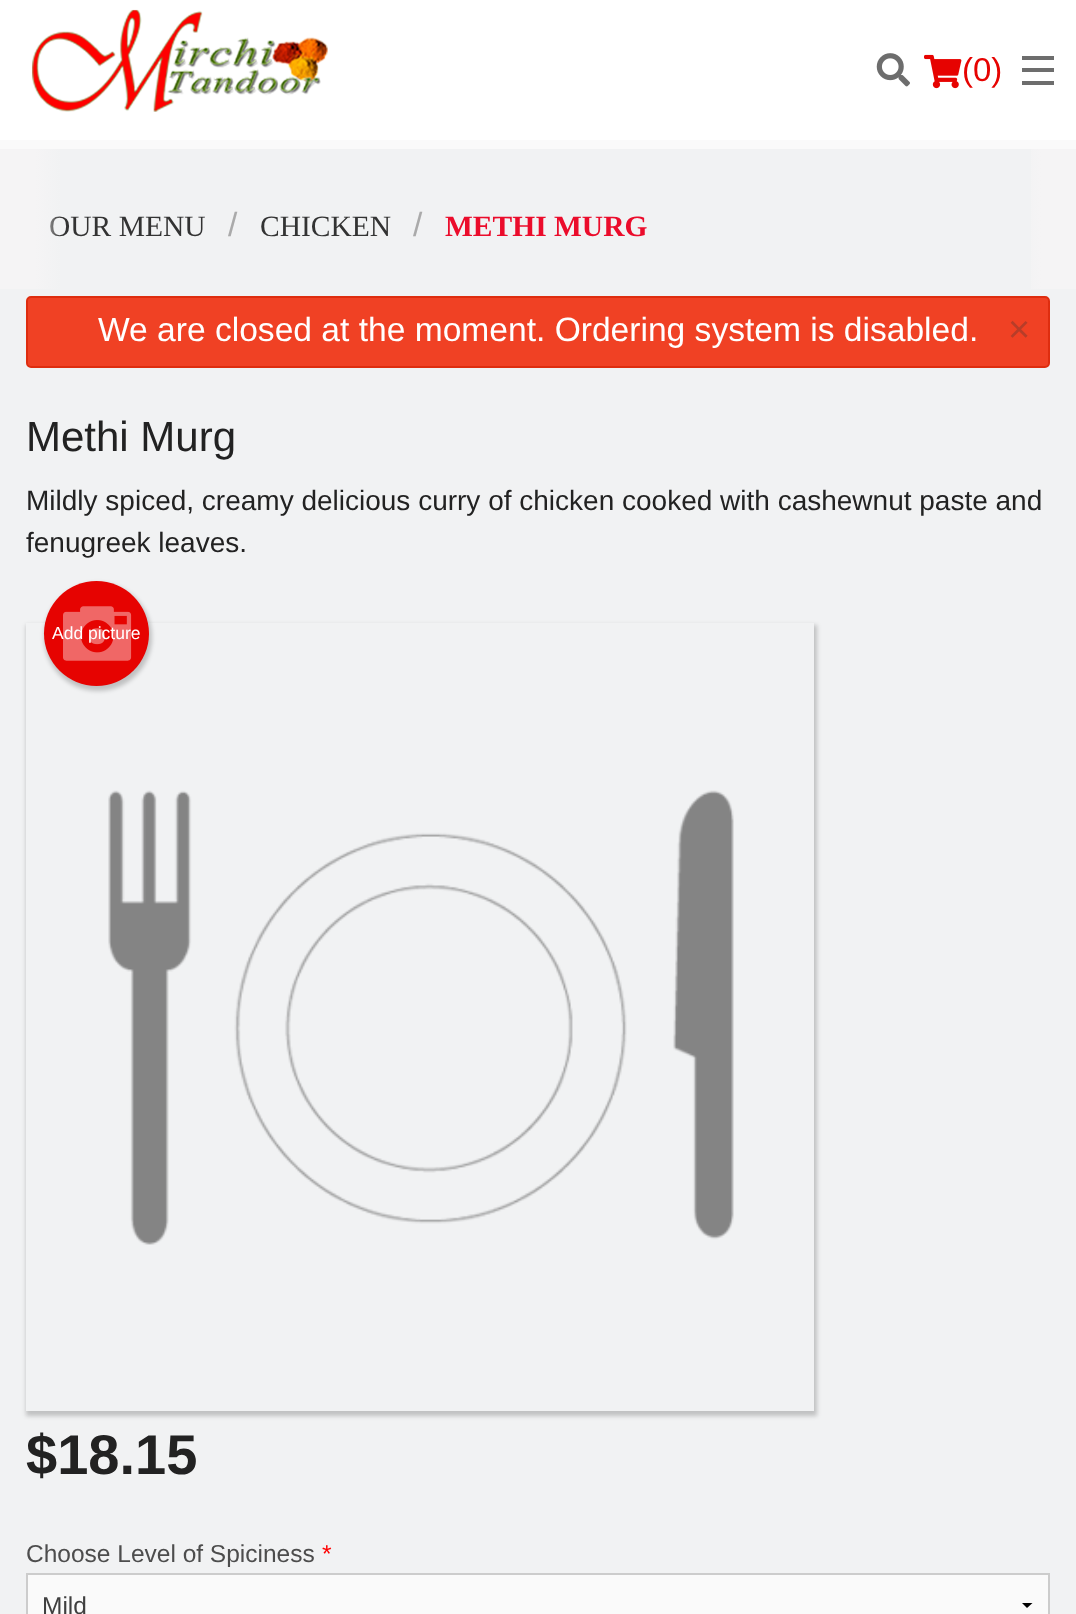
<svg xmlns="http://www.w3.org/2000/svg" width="1076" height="1614">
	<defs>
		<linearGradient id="g1" gradientUnits="userSpaceOnUse" x1="61" y1="219" x2="0" y2="219"><stop offset="0" stop-color="#F5F4F5" stop-opacity="0" /><stop offset="0.43" stop-color="#F5F4F5" /><stop offset="1" stop-color="#F5F4F5" /></linearGradient>
		<linearGradient id="g2" gradientUnits="userSpaceOnUse" x1="1015" y1="219" x2="1076" y2="219"><stop offset="0" stop-color="#F1F2F3" /><stop offset="0.43" stop-color="#F5F4F5" /><stop offset="1" stop-color="#F5F4F5" /></linearGradient>
		<clipPath id="clip1"><path d="M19 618H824V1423H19ZM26 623H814V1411H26Z" clip-rule="evenodd" /></clipPath>
	</defs>
	<rect width="100%" height="100%" fill="#F1F2F3" />
	<rect x="0" y="0" width="1076" height="140" fill="#FFFFFF" />
	<image x="31" y="9" width="297" height="103" href="assets/img1.png" />
	<image x="876" y="53" width="34" height="34" href="assets/img2.png" />
	<image x="924" y="54" width="38" height="35" href="assets/img3.png" />
	<text x="962" y="81" font-family="Liberation Sans" font-size="33" fill="#E60301">(0)</text>
	<rect x="1022" y="81" width="32" height="4" fill="#6D6D6D" />
	<rect x="1022" y="68" width="32" height="4" fill="#6D6D6D" />
	<rect x="1022" y="56" width="32" height="4" fill="#6D6D6D" />
	<rect x="0" y="140" width="1076" height="9" fill="#FAFAFA" />
	<text x="49" y="236" font-family="Liberation Serif" font-size="29.5" fill="#333333">OUR MENU</text>
	<rect x="0" y="149" width="60" height="140" fill="url(#g1)" />
	<text x="228" y="236" font-family="Liberation Sans" font-size="33.6" fill="#AAAAAA">/</text>
	<text x="260" y="236" font-family="Liberation Serif" font-size="29.5" fill="#333333">CHICKEN</text>
	<text x="413" y="236" font-family="Liberation Sans" font-size="33.6" fill="#AAAAAA">/</text>
	<text x="445" y="236" font-family="Liberation Serif" font-size="29.5" font-weight="700" fill="#EB0C2B">METHI MURG</text>
	<rect x="1031" y="149" width="45" height="140" fill="url(#g2)" />
	<rect x="27" y="297" width="1022" height="70" rx="4" fill="#F04124" stroke="#DE2D0F" stroke-width="2" />
	<text x="98" y="341" font-family="Liberation Sans" font-size="33.6" fill="#FFFFFF">We are closed at the moment. Ordering system is disabled.</text>
	<text x="1008" y="342" font-family="Liberation Sans" font-size="38" fill="#B73D29">×</text>
	<text x="26" y="451" font-family="Liberation Sans" font-size="42" fill="#222222">Methi Murg</text>
	<g font-family="Liberation Sans" font-size="28" fill="#222222">
		<text x="26" y="510">Mildly spiced, creamy delicious curry of chicken cooked with cashewnut paste and</text>
		<text x="26" y="552">fenugreek leaves.</text>
	</g>
	<g clip-path="url(#clip1)">
		<rect x="26" y="625" width="791" height="791" fill="#000000" fill-opacity="0.2" filter="blur(2px)" />
	</g>
	<image x="108" y="790" width="626" height="455" href="assets/img4.png" />
	<rect x="44" y="583" width="108" height="108" rx="54" fill="#000000" fill-opacity="0.2" filter="blur(2px)" />
	<circle cx="96.5" cy="633.5" r="52.5" fill="#E60301" />
	<image x="63" y="606" width="69" height="55" href="assets/img5.png" />
	<text x="52" y="639" font-family="Liberation Sans" font-size="17.5" fill="#FFFFFF">Add picture</text>
	<text x="26" y="1474" font-family="Liberation Sans" font-size="56" font-weight="700" fill="#222222">$18.15</text>
	<text x="26" y="1562" font-family="Liberation Sans" font-size="24.5" fill="#4D4D4D">Choose Level of Spiciness</text>
	<text x="322" y="1562" font-family="Liberation Sans" font-size="24.5" fill="#FF0000">*</text>
	<rect x="28" y="1575" width="1020" height="39" fill="#FAFAFA" />
	<path d="M1032.5 1603L1027 1608L1022 1603Z" fill="#000000" />
	<rect x="27" y="1574" width="1022" height="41" fill="none" stroke="#CCCCCC" stroke-width="2" />
	<text x="42" y="1614" font-family="Liberation Sans" font-size="24.5" fill="#3F3F3F">Mild</text>
</svg>
